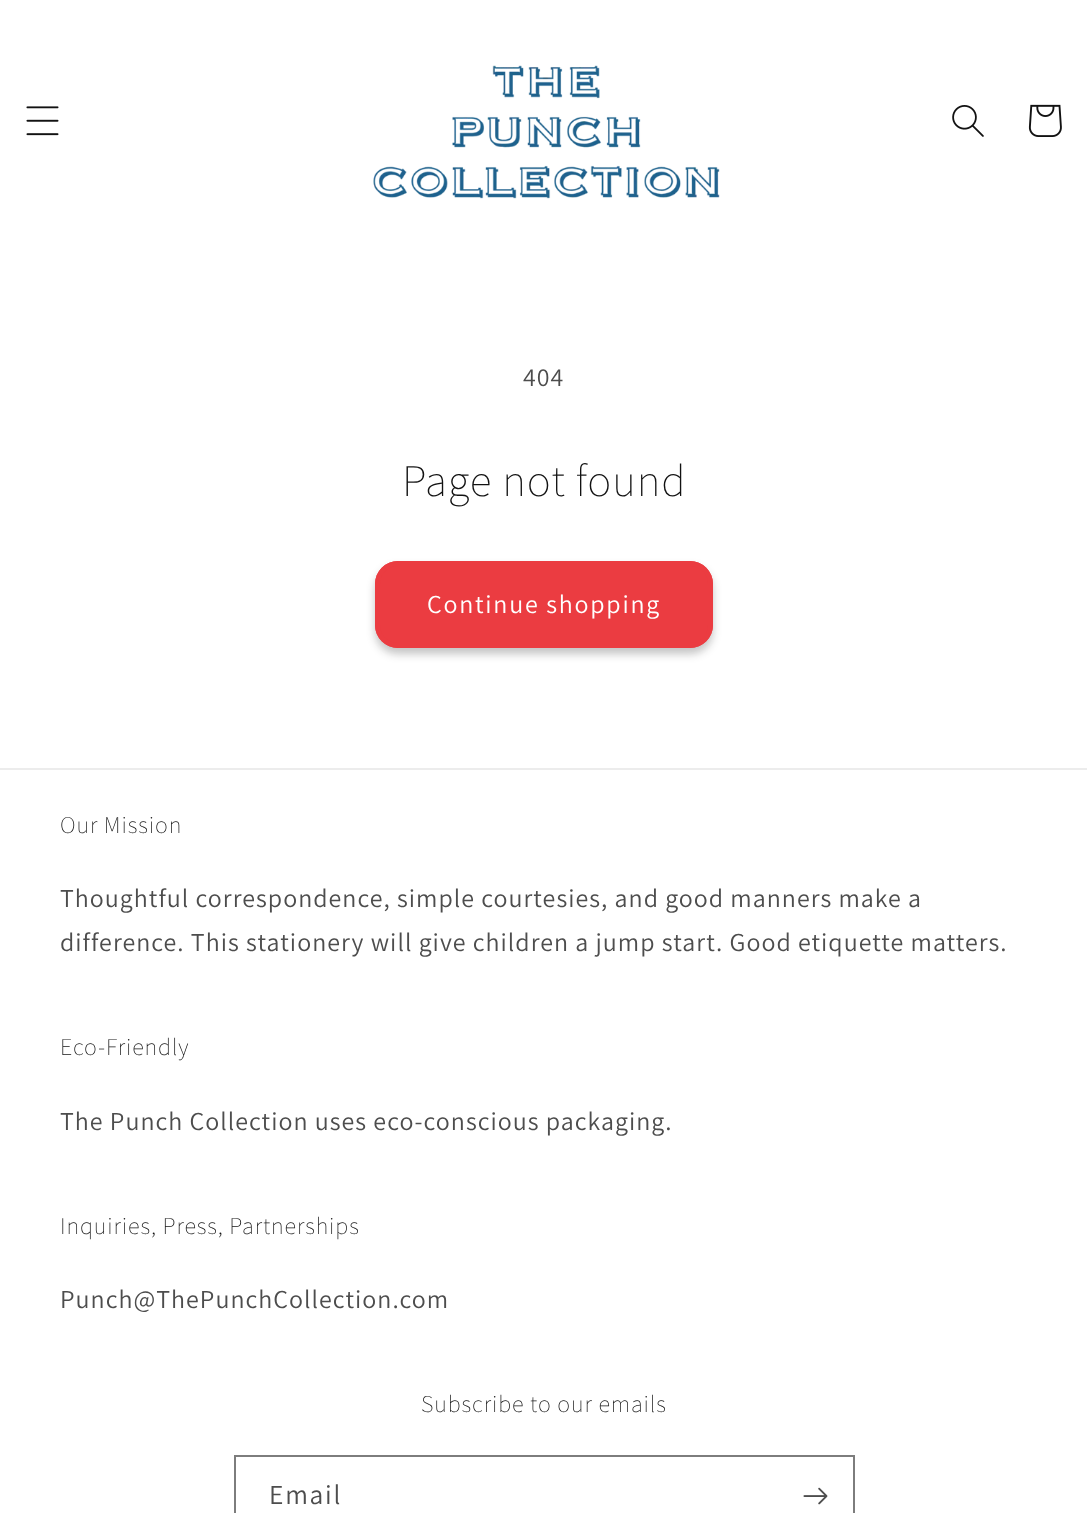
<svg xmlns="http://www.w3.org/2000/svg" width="1087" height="1513">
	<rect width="100%" height="100%" fill="#FFFFFF" />
	<image x="26" y="106" width="33" height="30" href="assets/img1.png" />
	<image x="373" y="65" width="347" height="134" href="assets/img2.png" />
	<image x="952" y="105" width="32" height="32" href="assets/img3.png" />
	<image x="1028" y="104" width="34" height="33" href="assets/img4.png" />
	<text x="523" y="386" font-family="Assistant" font-size="25.9" letter-spacing="1.03" fill="#4D4D4D">404</text>
	<text x="402" y="496" font-family="Assistant" font-size="45" font-weight="200" letter-spacing="0.9" fill="#121212">Page not found</text>
	<rect x="375" y="567" width="338" height="87" rx="23" fill="#121212" fill-opacity="0.25" filter="blur(4px)" />
	<rect x="375" y="561" width="338" height="87" rx="23" fill="#EB3C41" />
	<rect x="377.5" y="563.5" width="333" height="82" rx="20.5" fill="none" stroke="#EB3C41" stroke-width="5" />
	<text x="427" y="613" font-family="Assistant" font-size="25.9" letter-spacing="1.75" fill="#FFFFFF">Continue shopping</text>
	<rect x="0" y="768" width="1087" height="2" fill="#ECECEC" />
	<text x="60" y="833" font-family="Assistant" font-size="24" font-weight="200" letter-spacing="0.9" fill="#121212">Our Mission</text>
	<g font-family="Assistant" font-size="25.9" letter-spacing="1.03" fill="#4D4D4D">
		<text x="60" y="907">Thoughtful correspondence, simple courtesies, and good manners make a</text>
		<text x="60" y="951">difference. This stationery will give children a jump start. Good etiquette matters.</text>
	</g>
	<text x="60" y="1055" font-family="Assistant" font-size="24" font-weight="200" letter-spacing="0.9" fill="#121212">Eco-Friendly</text>
	<text x="60" y="1130" font-family="Assistant" font-size="25.9" letter-spacing="1.03" fill="#4D4D4D">The Punch Collection uses eco-conscious packaging.</text>
	<text x="60" y="1234" font-family="Assistant" font-size="24" font-weight="200" letter-spacing="0.9" fill="#121212">Inquiries, Press, Partnerships</text>
	<text x="60" y="1308" font-family="Assistant" font-size="25.9" letter-spacing="1.03" fill="#4D4D4D">Punch@ThePunchCollection.com</text>
	<text x="421" y="1412" font-family="Assistant" font-size="24" font-weight="200" letter-spacing="0.9" fill="#121212">Subscribe to our emails</text>
	<rect x="235" y="1456" width="619" height="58" fill="none" stroke="#7D7D7D" stroke-width="2" />
	<text x="269" y="1504" font-family="Assistant" font-size="27.5" letter-spacing="1.75" fill="#4D4D4D">Email</text>
	<image x="803" y="1487" width="25" height="18" href="assets/img5.png" />
</svg>
